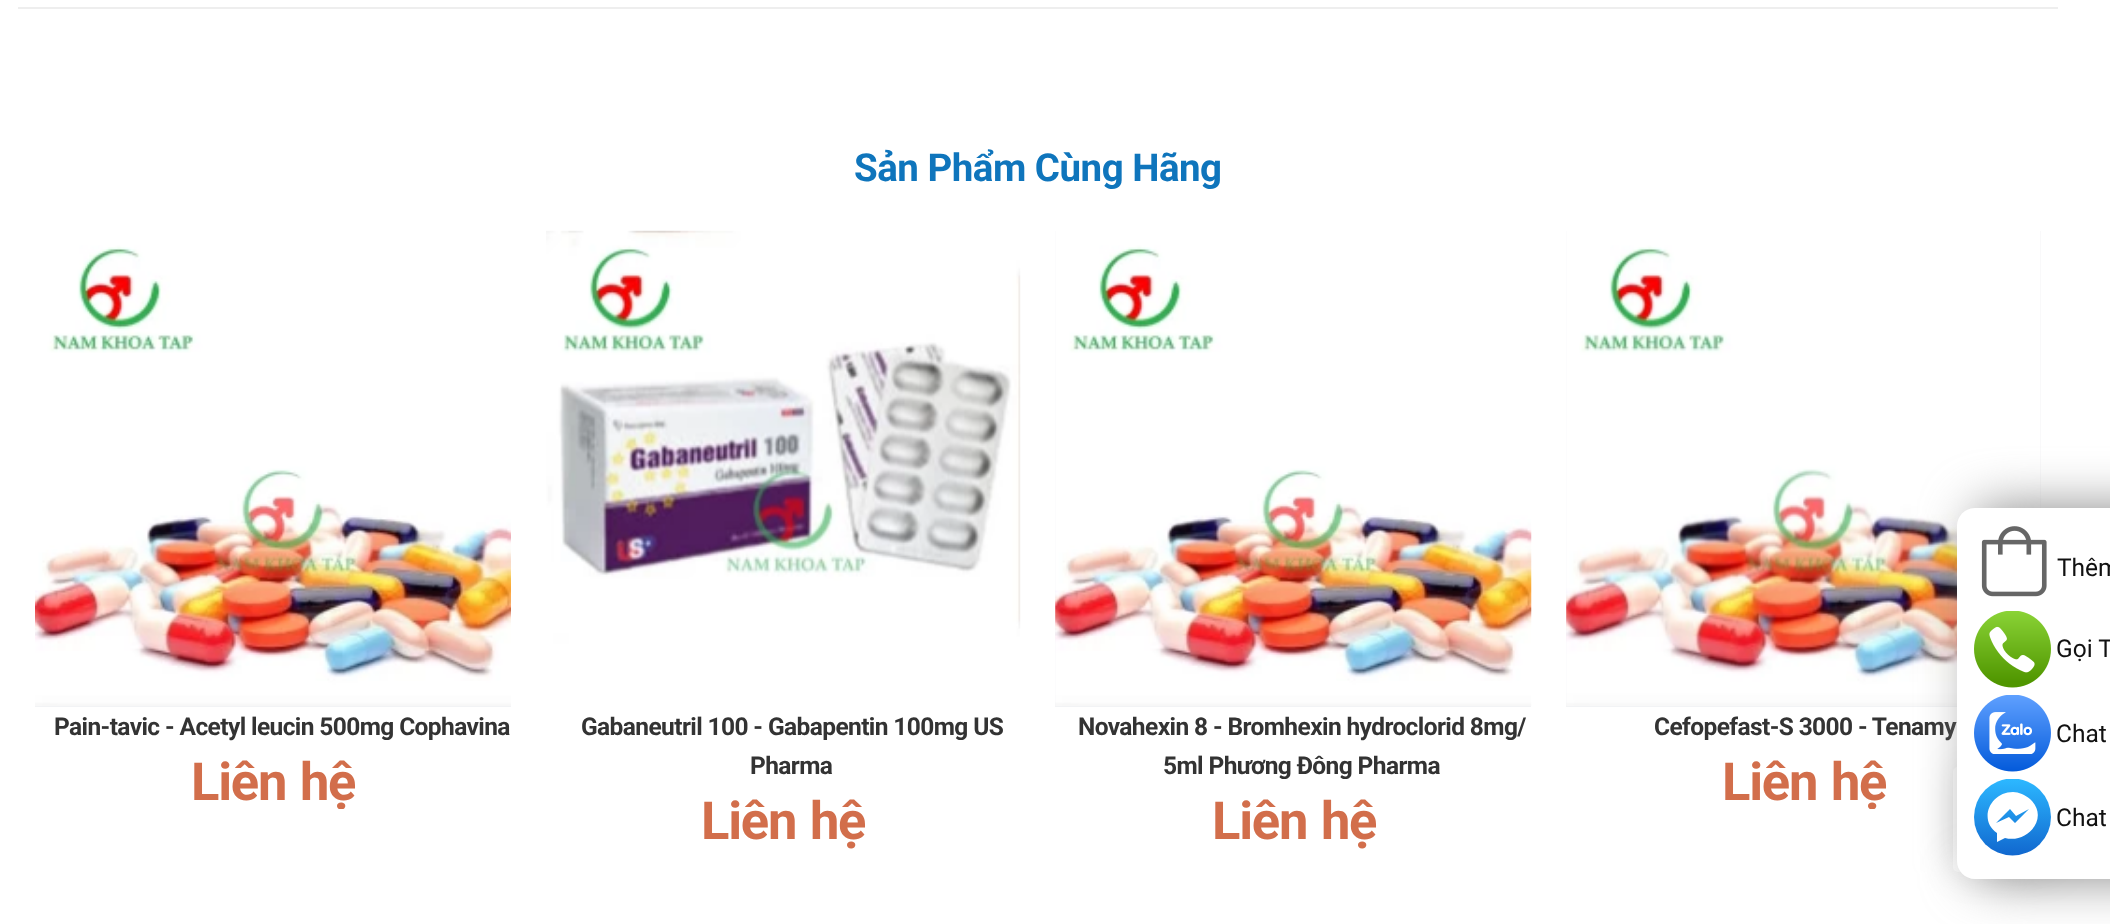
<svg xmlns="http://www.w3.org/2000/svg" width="2110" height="924">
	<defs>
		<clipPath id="clip1"><rect x="53" y="756" width="458" height="53" /></clipPath>
		<clipPath id="clip2"><rect x="1584" y="756" width="457" height="53" /></clipPath>
		<clipPath id="clip3"><rect x="1974" y="779" width="77" height="77" /></clipPath>
		<linearGradient id="g1" gradientUnits="userSpaceOnUse" x1="2012" y1="855" x2="2012" y2="780"><stop offset="0" stop-color="#1168CF" /><stop offset="1" stop-color="#2CB7FF" /></linearGradient>
	</defs>
	<rect width="100%" height="100%" fill="#FFFFFF" />
	<rect x="18" y="7" width="2040" height="2" fill="#EEEEEE" />
	<text x="854" y="181" font-family="Roboto" font-size="38.5" font-weight="700" letter-spacing="-0.5" fill="#0F75BC">Sản Phẩm Cùng Hãng</text>
	<rect x="35" y="706" width="476" height="1" fill="#F2F3F5" />
	<image x="35" y="231" width="476" height="475" href="assets/img1.png" />
	<text x="54" y="735" font-family="Roboto" font-size="24.5" font-weight="700" letter-spacing="-0.6" fill="#333333">Pain-tavic - Acetyl leucin 500mg Cophavina</text>
	<g clip-path="url(#clip1)">
		<text x="191" y="800" word-spacing="2" font-family="Roboto" font-size="52.5" font-weight="700" letter-spacing="-1.25" fill="#D26E4B">Liên hệ</text>
	</g>
	<image x="546" y="230" width="475" height="477" href="assets/img2.png" />
	<g font-family="Roboto" font-size="24.5" font-weight="700" letter-spacing="-0.6" fill="#333333">
		<text x="581" y="735">Gabaneutril 100 - Gabapentin 100mg US</text>
		<text x="750" y="774">Pharma</text>
	</g>
	<text x="701" y="839" word-spacing="2" font-family="Roboto" font-size="52.5" font-weight="700" letter-spacing="-1.25" fill="#D26E4B">Liên hệ</text>
	<rect x="1055" y="231" width="476" height="476" fill="#F2F3F5" />
	<image x="1055" y="231" width="477" height="475" href="assets/img3.png" />
	<g font-family="Roboto" font-size="24.5" font-weight="700" letter-spacing="-0.6" fill="#333333">
		<text x="1078" y="735">Novahexin 8 - Bromhexin hydroclorid 8mg/</text>
		<text x="1163" y="774">5ml Phương Đông Pharma</text>
	</g>
	<text x="1212" y="839" word-spacing="2" font-family="Roboto" font-size="52.5" font-weight="700" letter-spacing="-1.25" fill="#D26E4B">Liên hệ</text>
	<rect x="1566" y="231" width="475" height="476" fill="#F2F3F5" />
	<image x="1566" y="231" width="475" height="475" href="assets/img4.png" />
	<text x="1654" y="735" font-family="Roboto" font-size="24.5" font-weight="700" letter-spacing="-0.6" fill="#333333">Cefopefast-S 3000 - Tenamy</text>
	<g clip-path="url(#clip2)">
		<text x="1722" y="800" word-spacing="2" font-family="Roboto" font-size="52.5" font-weight="700" letter-spacing="-1.25" fill="#D26E4B">Liên hệ</text>
	</g>
	<rect x="1953" y="767" width="105" height="105" rx="5" fill="#000000" fill-opacity="0.1" filter="blur(17.5px)" />
	<rect x="1953" y="767" width="105" height="105" rx="5" fill="#FFFFFF" />
	<rect x="1974" y="508" width="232" height="371" rx="18" fill="#888888" filter="blur(26px)" />
	<path d="M1975 508H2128V879H1975C1965 879 1957 871 1957 861V526C1957 516 1965 508 1975 508Z" fill="#FFFFFF" />
	<image x="1981" y="526" width="66" height="71" href="assets/img5.png" />
	<text x="2057" y="576" font-family="Roboto" font-size="24.5" fill="#111111">Thêm</text>
	<image x="1974" y="611" width="77" height="77" href="assets/img6.png" />
	<text x="2056" y="657" font-family="Roboto" font-size="24.5" fill="#111111">Gọi T</text>
	<image x="1974" y="695" width="77" height="77" href="assets/img7.png" />
	<text x="2056" y="742" font-family="Roboto" font-size="24.5" fill="#111111">Chat</text>
	<g clip-path="url(#clip3)">
		<circle cx="2012.5" cy="817" r="38.5" fill="url(#g1)" />
	</g>
	<path d="M2013 792C1990 792 1978 820 1997 833V842L2005 838C2028 844 2050 817 2030 799C2025 795 2019 792 2013 792ZM2015 823L2009 817L1996 823L2010 809L2016 816L2029 809Z" fill="#FFFFFF" fill-rule="evenodd" />
	<text x="2056" y="826" font-family="Roboto" font-size="24.5" fill="#111111">Chat</text>
</svg>
